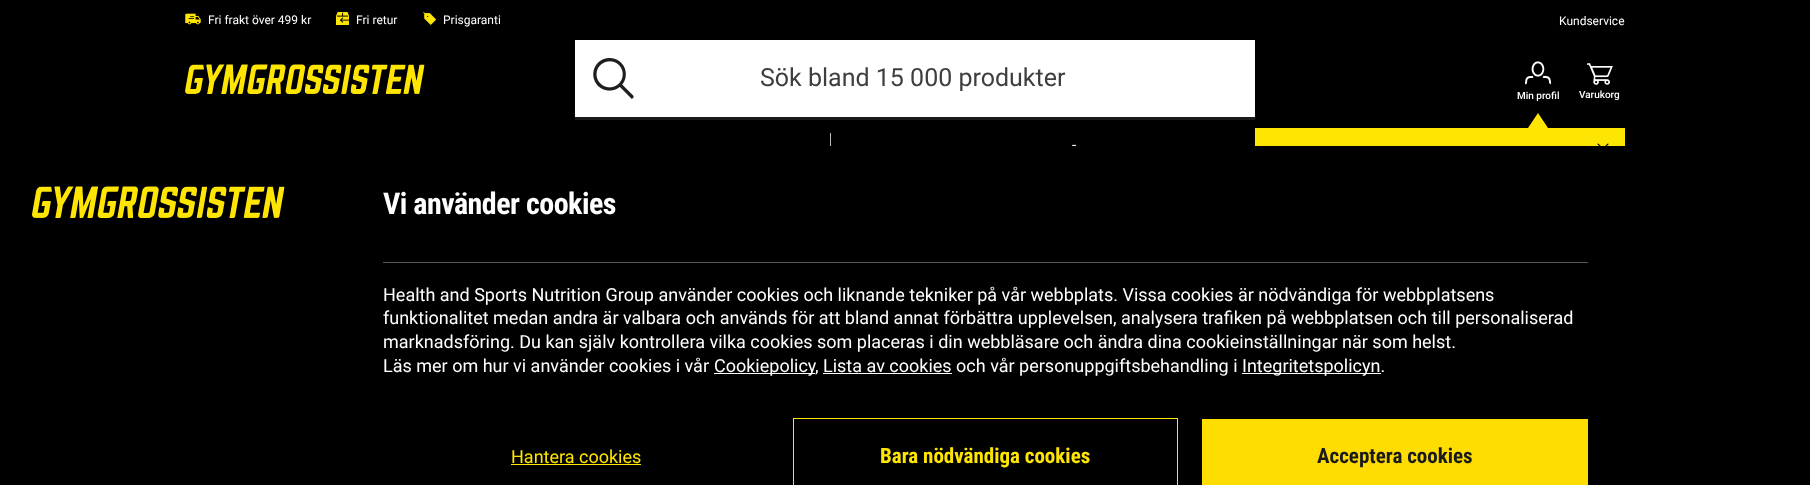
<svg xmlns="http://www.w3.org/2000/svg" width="1810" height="485">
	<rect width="100%" height="100%" fill="#000000" />
	<image x="185" y="13" width="16" height="12" href="assets/img1.png" />
	<text x="208" y="24" font-family="Roboto" font-size="12" fill="#FFFFFF">Fri frakt över 499 kr</text>
	<image x="336" y="12" width="13" height="13" href="assets/img2.png" />
	<text x="356" y="24" font-family="Roboto" font-size="12" fill="#FFFFFF">Fri retur</text>
	<image x="423" y="12" width="13" height="13" href="assets/img3.png" />
	<g font-family="Roboto" font-size="12" fill="#FFFFFF">
		<text x="443" y="24">Prisgaranti</text>
		<text x="1559" y="25">Kundservice</text>
	</g>
	<image x="185" y="64" width="240" height="30" href="assets/img4.png" />
	<rect x="575" y="40" width="680" height="77" fill="#FFFFFF" />
	<image x="593" y="58" width="41" height="41" href="assets/img5.png" />
	<rect x="575" y="117" width="680" height="3" fill="#1A1A1A" />
	<text x="760" y="86" font-family="Roboto" font-size="25" fill="#3E3E3E">Sök bland 15 000 produkter</text>
	<image x="1525" y="61" width="27" height="24" href="assets/img6.png" />
	<text x="1517" y="99" font-family="Roboto" font-size="10" font-weight="500" fill="#FFFFFF">Min profil</text>
	<path d="M1548 128H1528L1538 113Z" fill="#FEE502" />
	<rect x="1255" y="128" width="370" height="18" fill="#FEE502" />
	<image x="1597" y="143" width="12" height="3" href="assets/img7.png" />
	<image x="1587" y="63" width="26" height="22" href="assets/img8.png" />
	<text x="1579" y="98" font-family="Roboto" font-size="10" font-weight="500" fill="#FFFFFF">Varukorg</text>
	<rect x="830" y="133" width="1" height="13" fill="#B8B8B8" />
	<text x="1072" y="150" font-family="Roboto" font-size="15" fill="#FFFFFF">-</text>
	<rect x="1072" y="146" width="3" height="1" fill="#000000" />
	<image x="32" y="186" width="253" height="32" href="assets/img9.png" />
	<rect x="383" y="262" width="1205" height="1" fill="#575757" />
	<text x="383" y="214" font-family="Roboto Condensed" font-size="30" font-weight="700" letter-spacing="-0.5" fill="#FFFFFF">Vi använder cookies</text>
	<g font-family="Roboto" font-size="18" fill="#FFFFFF">
		<text x="383" y="301">Health and Sports Nutrition Group använder cookies och liknande tekniker på vår webbplats. Vissa cookies är nödvändiga för webbplatsens</text>
		<text x="383" y="324">funktionalitet medan andra är valbara och används för att bland annat förbättra upplevelsen, analysera trafiken på webbplatsen och till personaliserad</text>
		<text x="383" y="348">marknadsföring. Du kan själv kontrollera vilka cookies som placeras i din webbläsare och ändra dina cookieinställningar när som helst.</text>
		<text x="383" y="372">Läs mer om hur vi använder cookies i vår</text>
	</g>
	<rect x="714" y="373" width="101" height="1" fill="#FFFFFF" />
	<g font-family="Roboto" font-size="18" fill="#FFFFFF">
		<text x="714" y="372">Cookiepolicy</text>
		<text x="815" y="372">, Lista av cookies och vår personuppgiftsbehandling i</text>
	</g>
	<rect x="1242" y="373" width="139" height="1" fill="#FFFFFF" />
	<text x="1242" y="372" font-family="Roboto" font-size="18" fill="#FFFFFF">Integritetspolicyn.</text>
	<rect x="823" y="373" width="129" height="1" fill="#FFFFFF" />
	<text x="511" y="463" font-family="Roboto" font-size="18" fill="#FEE502">Hantera cookies</text>
	<rect x="511" y="464" width="130" height="1" fill="#FEE502" />
	<rect x="793.5" y="418.5" width="384" height="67" fill="none" stroke="#FEE502" />
	<text x="880" y="463" font-family="Roboto Condensed" font-size="21" font-weight="700" fill="#FEE502">Bara nödvändiga cookies</text>
	<rect x="1202" y="419" width="386" height="66" fill="#FFDD00" />
	<text x="1317" y="463" font-family="Roboto Condensed" font-size="21" font-weight="700" fill="#1A1A1A">Acceptera cookies</text>
</svg>
